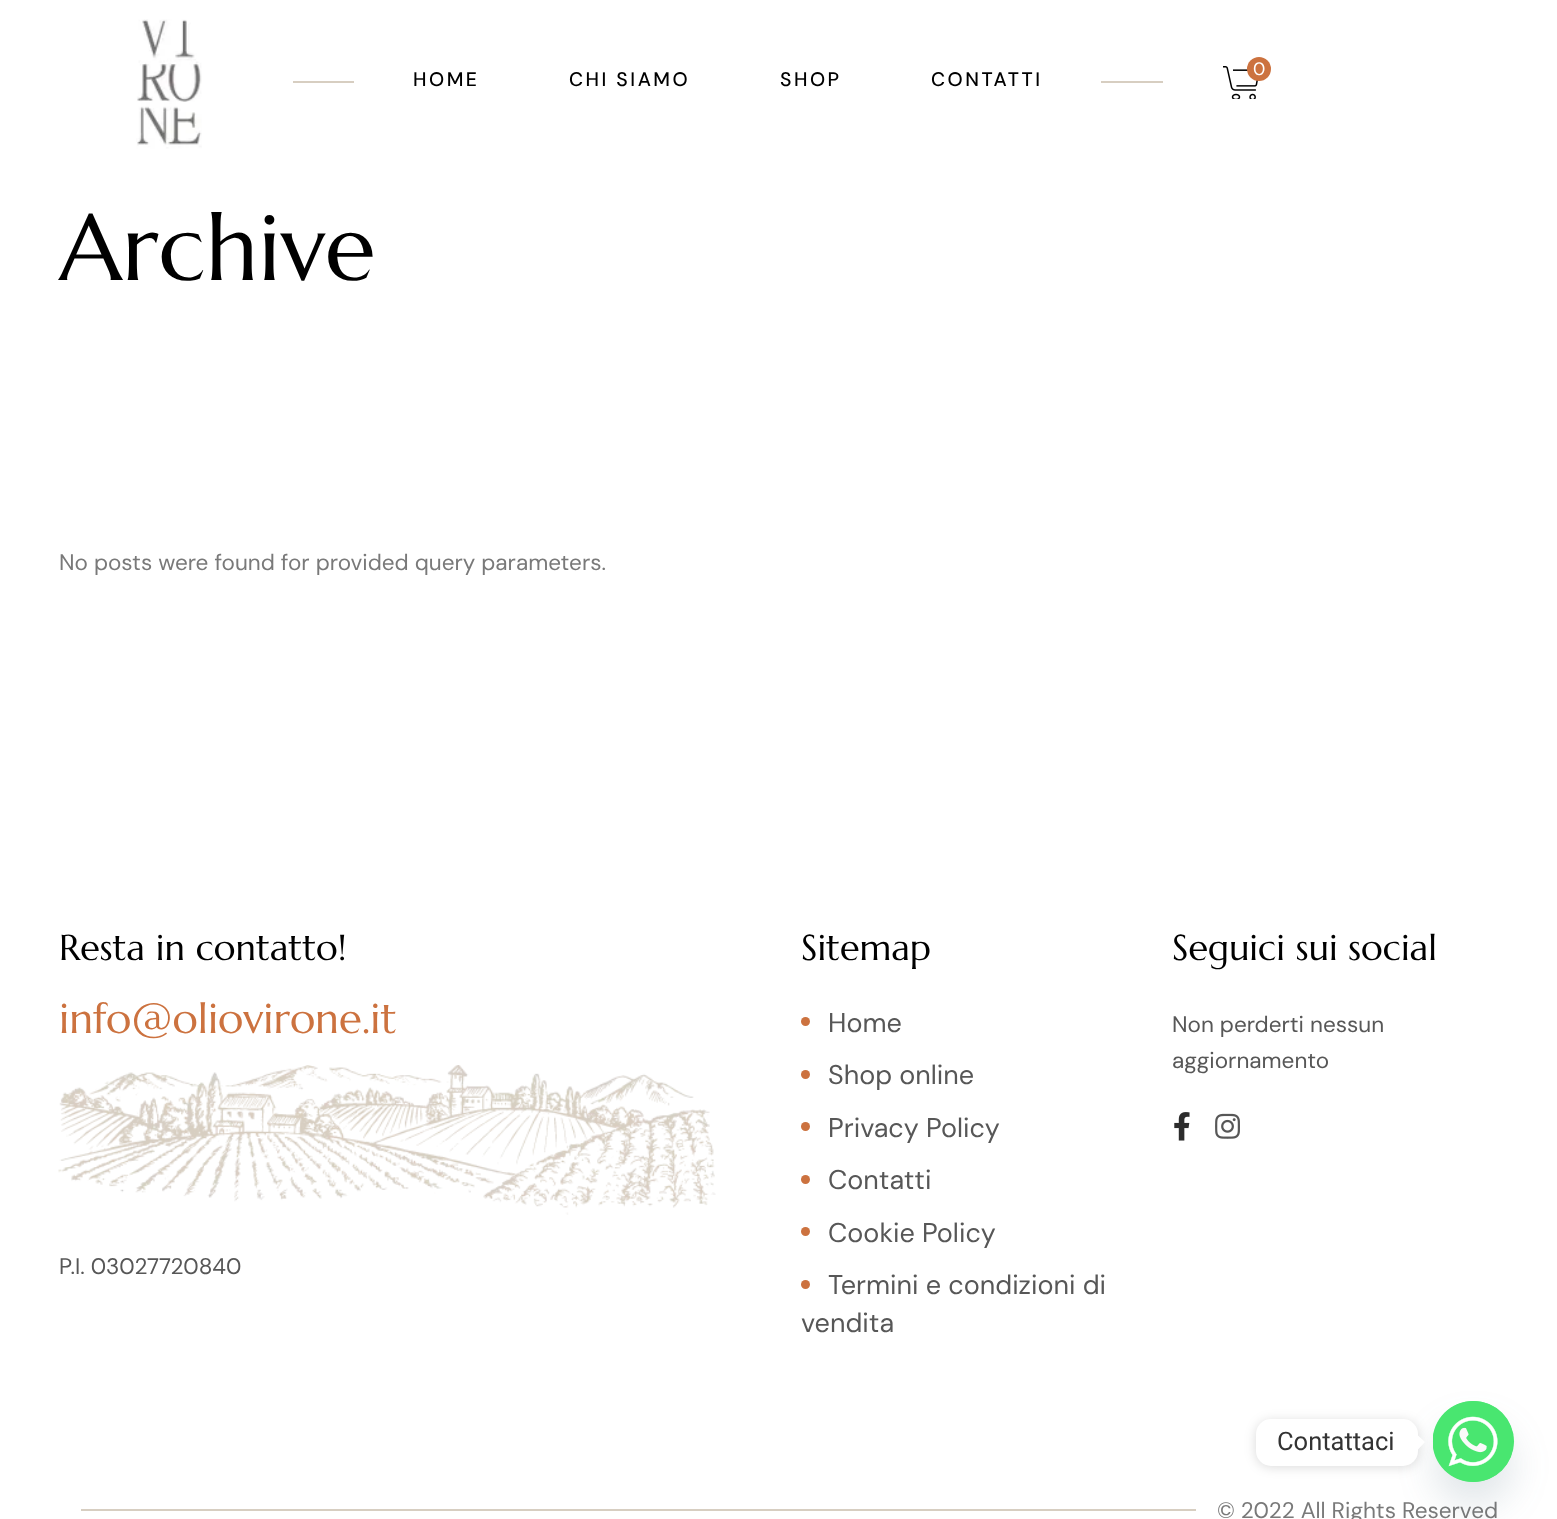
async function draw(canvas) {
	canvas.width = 1557;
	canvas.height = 1519;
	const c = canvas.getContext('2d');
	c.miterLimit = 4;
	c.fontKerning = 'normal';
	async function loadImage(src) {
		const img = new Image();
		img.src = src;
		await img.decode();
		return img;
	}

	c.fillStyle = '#fff';
	c.fillRect(0, 0, 1557, 1519);
	c.drawImage(await loadImage('img1.png'), 136, 19, 66, 130);
	c.drawImage(await loadImage('img2.png'), 1223, 66, 35, 33);
	c.fillStyle = '#cc723f';
	c.beginPath();
	c.arc(1259, 69, 12, 0, 2 * Math.PI);
	c.fill();
	c.font = '18px DM Sans';
	c.fillStyle = '#fff';
	c.fillText('0', 1253, 75);
	c.fillStyle = '#d7cec1';
	c.fillRect(293, 81, 61, 2);
	c.letterSpacing = '2.5px';
	c.font = '500 19.5px DM Sans';
	c.fillStyle = '#000';
	for (const [text, x, y] of [
		['HOME', 413, 86],
		['CHI SIAMO', 569, 86],
		['SHOP', 780, 86],
		['CONTATTI', 931, 86],
	]) {
		c.fillText(text, x, y);
	}
	c.fillStyle = '#d7cec1';
	c.fillRect(1101, 81, 62, 2);
	c.letterSpacing = '0px';
	c.font = '93px Marcellus';
	c.fillStyle = '#000';
	c.fillText('Archive', 59, 280);
	c.font = '22.5px DM Sans';
	c.fillStyle = '#797979';
	c.fillText('No posts were found for provided query parameters.', 59, 570);
	c.font = '36px Marcellus';
	c.fillStyle = '#000';
	c.fillText('Resta in contatto!', 59, 960);
	c.font = '42px Marcellus';
	c.fillStyle = '#cc723f';
	c.fillText('info@oliovirone.it', 59, 1033);
	c.drawImage(await loadImage('img3.png'), 58, 1065, 658, 150);
	c.font = '22.5px DM Sans';
	c.fillStyle = '#575757';
	c.fillText('P.I. 03027720840', 59, 1274);
	c.font = '36px Marcellus';
	c.fillStyle = '#000';
	c.fillText('Sitemap', 801, 960);
	c.fillStyle = '#cc723f';
	c.beginPath();
	c.arc(805.5, 1021.5, 4.5, 0, 2 * Math.PI);
	c.fill();
	c.font = '27px DM Sans';
	c.fillStyle = '#575757';
	c.fillText('Home', 828, 1032);
	c.fillStyle = '#cc723f';
	c.beginPath();
	c.arc(805.5, 1074.5, 4.5, 0, 2 * Math.PI);
	c.fill();
	c.fillStyle = '#575757';
	c.fillText('Shop online', 828, 1084);
	c.fillStyle = '#cc723f';
	c.beginPath();
	c.arc(805.5, 1126.5, 4.5, 0, 2 * Math.PI);
	c.fill();
	c.fillStyle = '#575757';
	c.fillText('Privacy Policy', 828, 1137);
	c.fillStyle = '#cc723f';
	c.beginPath();
	c.arc(805.5, 1179.5, 4.5, 0, 2 * Math.PI);
	c.fill();
	c.fillStyle = '#575757';
	c.fillText('Contatti', 828, 1189);
	c.fillStyle = '#cc723f';
	c.beginPath();
	c.arc(805.5, 1231.5, 4.5, 0, 2 * Math.PI);
	c.fill();
	c.fillStyle = '#575757';
	c.fillText('Cookie Policy', 828, 1242);
	c.fillStyle = '#cc723f';
	c.beginPath();
	c.arc(805.5, 1284.5, 4.5, 0, 2 * Math.PI);
	c.fill();
	c.fillStyle = '#575757';
	c.fillText('Termini e condizioni di', 828, 1294);
	c.fillText('vendita', 801, 1332);
	c.font = '36px Marcellus';
	c.fillStyle = '#000';
	c.fillText('Seguici sui social', 1172, 960);
	c.font = '22.5px DM Sans';
	c.fillStyle = '#575757';
	c.fillText('Non perderti nessun', 1172, 1032);
	c.fillText('aggiornamento', 1172, 1068);
	c.drawImage(await loadImage('img4.png'), 1174, 1112, 16, 29);
	c.drawImage(await loadImage('img5.png'), 1215, 1113, 25, 26);
	c.fillStyle = '#d7cec1';
	c.fillRect(81, 1509, 1115, 2);
	c.fillStyle = '#797979';
	c.fillText('© 2022 All Rights Reserved', 1217, 1518);
	c.fillStyle = '#49687e29';
	c.filter = 'blur(18px)';
	c.beginPath();
	c.roundRect(1433, 1425, 81, 81, 40.5);
	c.fill();
	c.filter = 'none';
	c.fillStyle = '#49e670';
	c.beginPath();
	c.arc(1473.5, 1441.5, 40.5, 0, 2 * Math.PI);
	c.fill();
	c.drawImage(await loadImage('img6.png'), 1433, 1401, 81, 81);
	c.fillStyle = '#00000026';
	c.filter = 'blur(6px)';
	c.beginPath();
	c.roundRect(1256, 1421, 162, 46, 15);
	c.fill();
	c.filter = 'none';
	c.fillStyle = '#fff';
	c.beginPath();
	c.roundRect(1256, 1419, 162, 47, 15);
	c.fill();
	c.font = '25.5px Roboto';
	c.fillStyle = '#333';
	c.fillText('Contattaci', 1277, 1450);
	c.fillStyle = '#fff';
	c.beginPath();
	c.moveTo(1417.5, 1450);
	c.lineTo(1417.5, 1435);
	c.lineTo(1425, 1442);
	c.closePath();
	c.fill();
}

draw(document.querySelector('canvas'));
